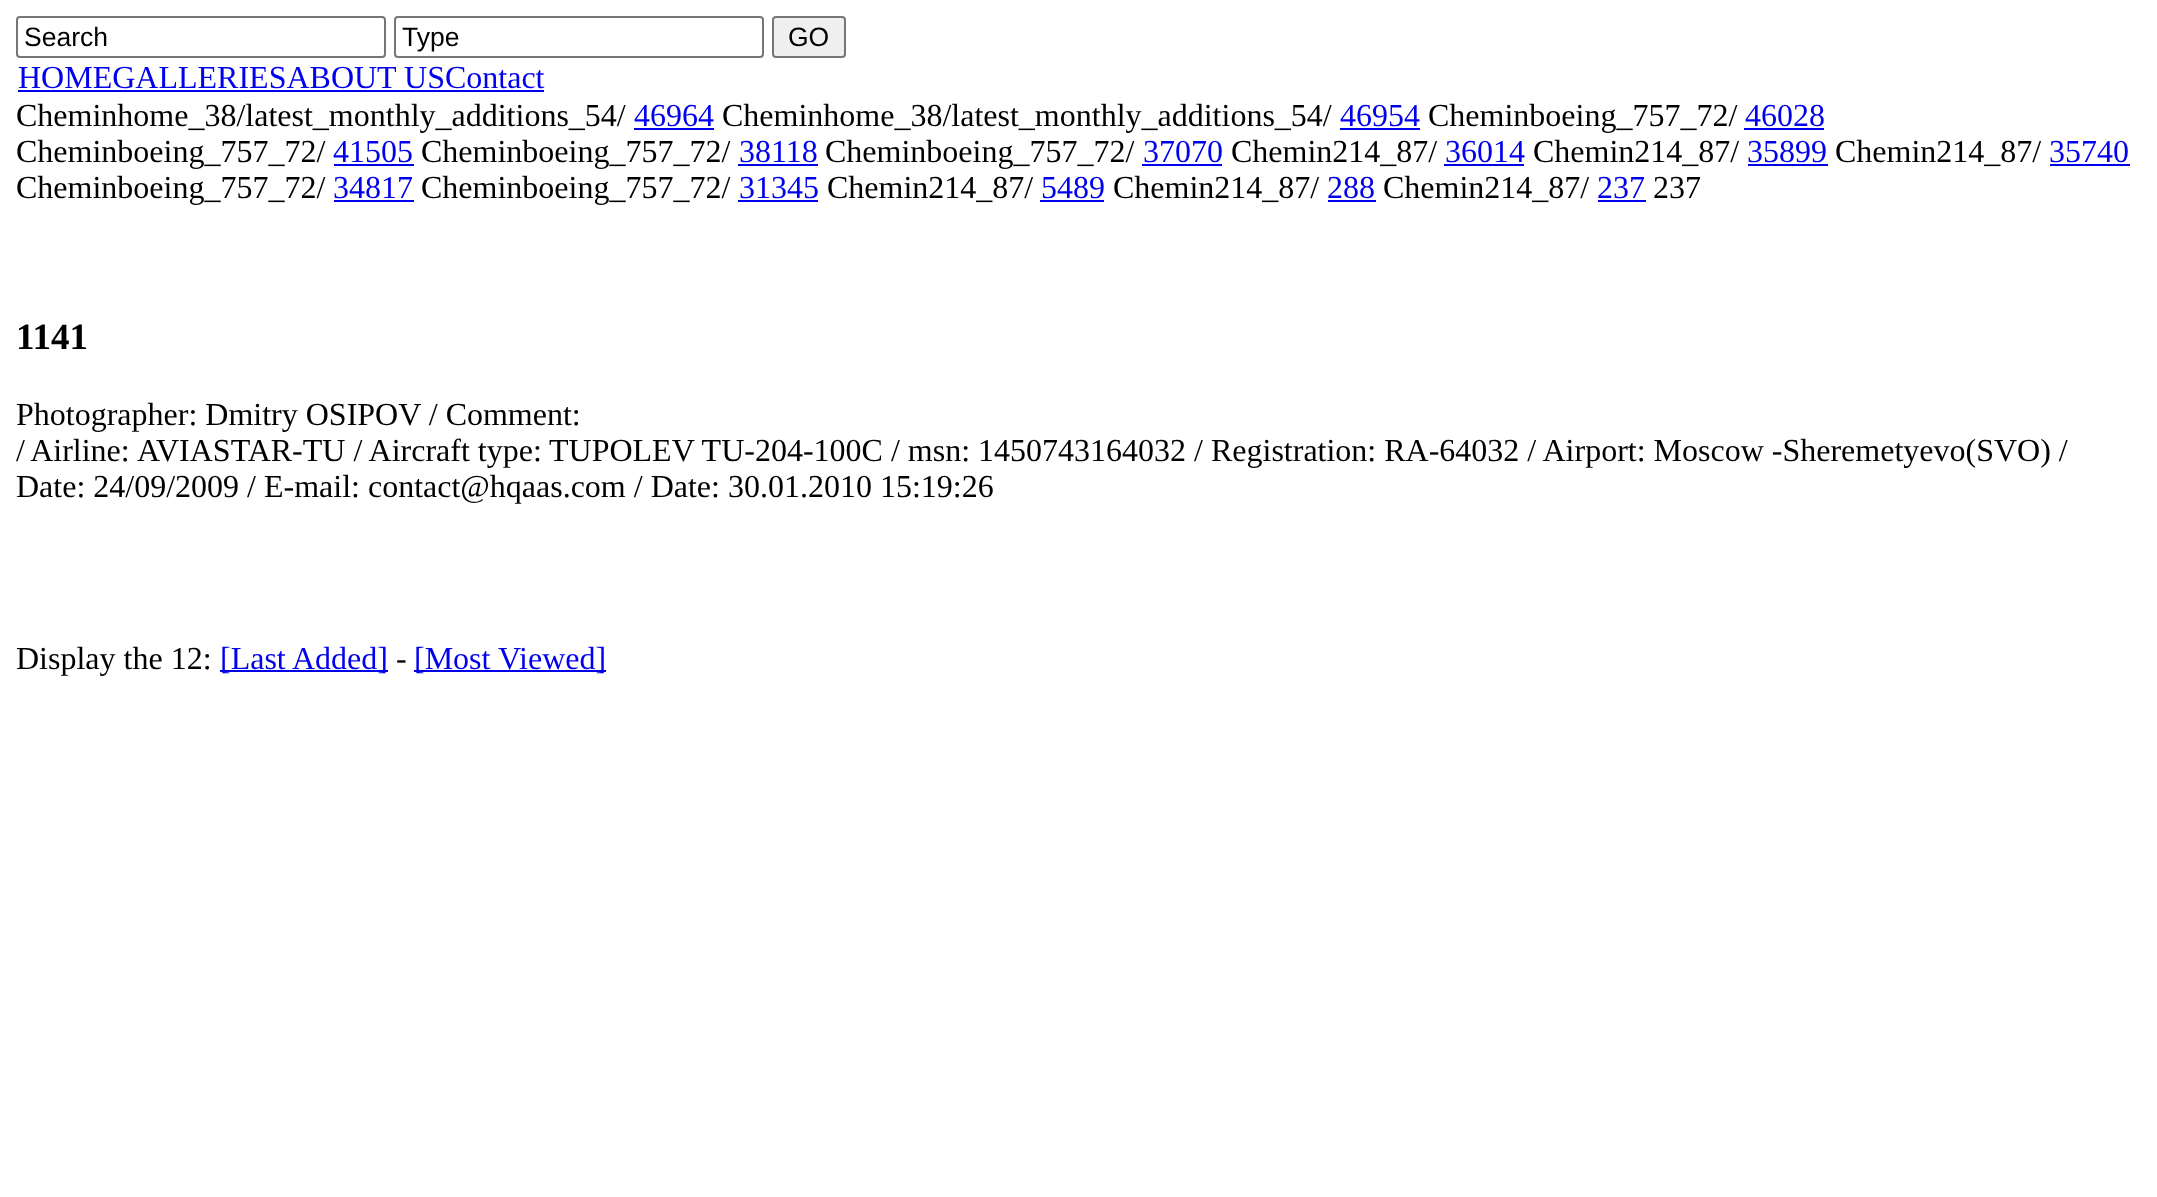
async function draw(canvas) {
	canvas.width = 2157;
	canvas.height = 1197;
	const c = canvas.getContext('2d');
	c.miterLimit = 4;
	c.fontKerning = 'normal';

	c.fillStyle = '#fff';
	c.fillRect(0, 0, 2157, 1197);
	c.beginPath();
	c.roundRect(17, 17, 368, 40, 3);
	c.strokeStyle = '#767676';
	c.lineWidth = 2;
	c.stroke();
	c.font = '26.5px Liberation Sans';
	c.fillStyle = '#000';
	c.fillText('Search', 24, 46);
	c.beginPath();
	c.roundRect(395, 17, 368, 40, 3);
	c.stroke();
	c.fillText('Type', 402, 46);
	c.fillStyle = '#efefef';
	c.beginPath();
	c.roundRect(773, 17, 72, 40, 3);
	c.fill();
	c.stroke();
	c.fillStyle = '#000';
	c.fillText('GO', 788, 46);
	c.font = '32px Liberation Serif';
	c.fillStyle = '#00e';
	c.fillText('HOMEGALLERIESABOUT USContact', 18, 88);
	c.fillRect(18, 90, 526, 2);
	c.fillStyle = '#000';
	c.fillText('Cheminhome_38/latest_monthly_additions_54/', 16, 126);
	c.fillStyle = '#00e';
	c.fillText('46964', 634, 126);
	c.fillRect(634, 128, 80, 2);
	c.fillStyle = '#000';
	c.fillText('Cheminhome_38/latest_monthly_additions_54/', 722, 126);
	c.fillStyle = '#00e';
	c.fillText('46954', 1340, 126);
	c.fillRect(1340, 128, 80, 2);
	c.fillStyle = '#000';
	c.fillText('Cheminboeing_757_72/', 1428, 126);
	c.fillStyle = '#00e';
	c.fillText('46028', 1745, 126);
	c.fillRect(1744, 128, 80, 2);
	c.fillStyle = '#000';
	c.fillText('Cheminboeing_757_72/', 16, 162);
	c.fillStyle = '#00e';
	c.fillText('41505', 333, 162);
	c.fillRect(334, 164, 80, 2);
	c.fillStyle = '#000';
	c.fillText('Cheminboeing_757_72/', 421, 162);
	c.fillStyle = '#00e';
	c.fillText('38118', 739, 162);
	c.fillRect(738, 164, 80, 2);
	c.fillStyle = '#000';
	c.fillText('Cheminboeing_757_72/', 825, 162);
	c.fillStyle = '#00e';
	c.fillText('37070', 1143, 162);
	c.fillRect(1142, 164, 80, 2);
	c.fillStyle = '#000';
	c.fillText('Chemin214_87/', 1231, 162);
	c.fillStyle = '#00e';
	c.fillText('36014', 1445, 162);
	c.fillRect(1444, 164, 80, 2);
	c.fillStyle = '#000';
	c.fillText('Chemin214_87/', 1533, 162);
	c.fillStyle = '#00e';
	c.fillText('35899', 1747, 162);
	c.fillRect(1748, 164, 80, 2);
	c.fillStyle = '#000';
	c.fillText('Chemin214_87/', 1835, 162);
	c.fillStyle = '#00e';
	c.fillText('35740', 2049, 162);
	c.fillRect(2050, 164, 80, 2);
	c.fillStyle = '#000';
	c.fillText('Cheminboeing_757_72/', 16, 198);
	c.fillStyle = '#00e';
	c.fillText('34817', 333, 198);
	c.fillRect(334, 200, 80, 2);
	c.fillStyle = '#000';
	c.fillText('Cheminboeing_757_72/', 421, 198);
	c.fillStyle = '#00e';
	c.fillText('31345', 739, 198);
	c.fillRect(738, 200, 80, 2);
	c.fillStyle = '#000';
	c.fillText('Chemin214_87/', 827, 198);
	c.fillStyle = '#00e';
	c.fillText('5489', 1041, 198);
	c.fillRect(1040, 200, 64, 2);
	c.fillStyle = '#000';
	c.fillText('Chemin214_87/', 1113, 198);
	c.fillStyle = '#00e';
	c.fillText('288', 1327, 198);
	c.fillRect(1328, 200, 48, 2);
	c.fillStyle = '#000';
	c.fillText('Chemin214_87/', 1383, 198);
	c.fillStyle = '#00e';
	c.fillText('237', 1597, 198);
	c.fillRect(1598, 200, 48, 2);
	c.fillStyle = '#000';
	c.fillText('237', 1653, 198);
	c.font = 'bold 37px Liberation Serif';
	c.fillText('1141', 16, 349);
	c.font = '32px Liberation Serif';
	c.fillText('Photographer: Dmitry OSIPOV / Comment:', 16, 425);
	c.wordSpacing = '-1px';
	c.fillText('/ Airline:', 16, 461);
	c.wordSpacing = '0px';
	for (const [text, x, y] of [
		['AVIASTAR-TU / Aircraft type:', 137, 461],
		['TUPOLEV TU-204-100C / msn: 1450743164032 / Registration: RA-64032 / Airport: Moscow -Sheremetyevo(SVO) /', 549, 461],
		['Date: 24/09/2009 / E-mail: contact@hqaas.com / Date: 30.01.2010 15:19:26', 16, 497],
		['Display the 12:', 16, 669],
	]) {
		c.fillText(text, x, y);
	}
	c.fillStyle = '#00e';
	c.fillRect(220, 670, 168, 2);
	c.fillText('[Last Added]', 220, 669);
	c.fillStyle = '#000';
	c.fillText('-', 396, 669);
	c.fillStyle = '#00e';
	c.fillRect(414, 670, 192, 2);
	c.fillText('[Most Viewed]', 414, 669);
}

draw(document.querySelector('canvas'));
